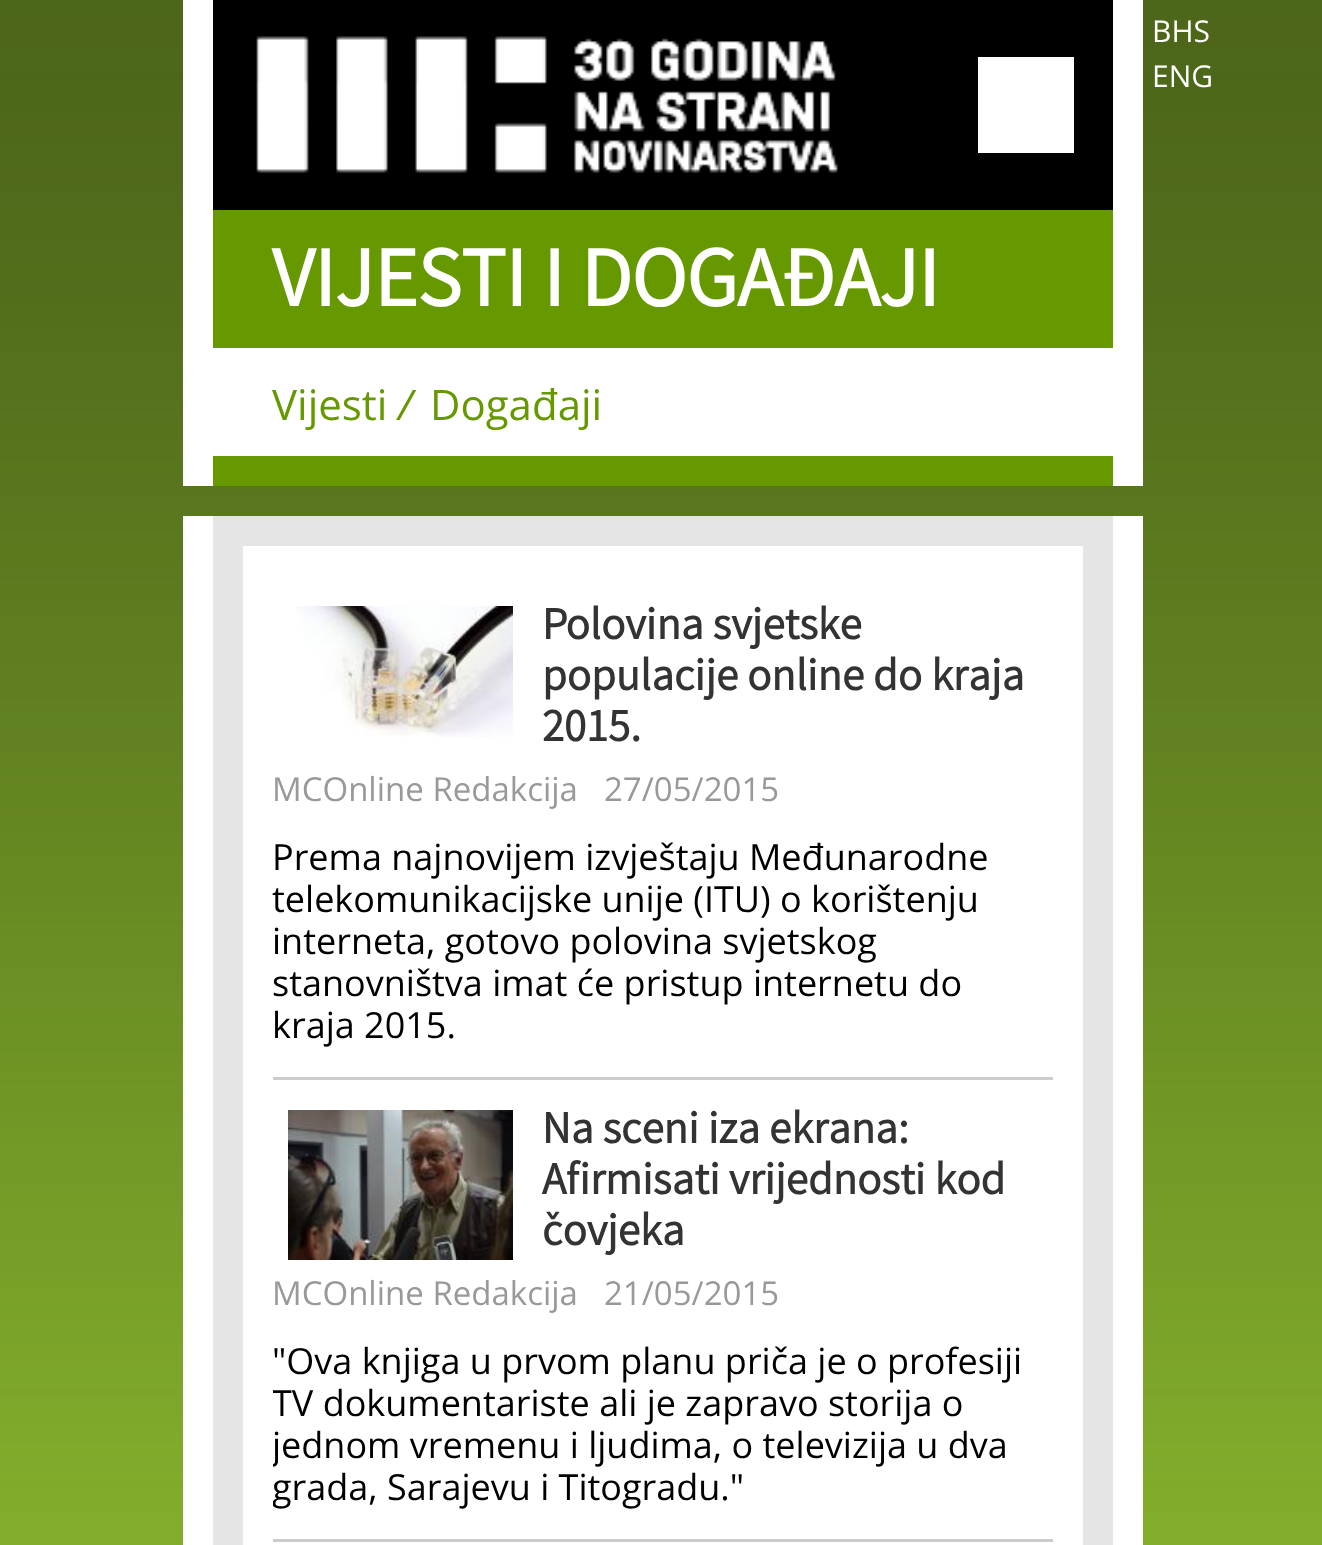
async function draw(canvas) {
	canvas.width = 1322;
	canvas.height = 1545;
	const c = canvas.getContext('2d');
	c.miterLimit = 4;
	c.fontKerning = 'normal';
	async function loadImage(src) {
		const img = new Image();
		img.src = src;
		await img.decode();
		return img;
	}

	c.fillStyle = '#fff';
	c.fillRect(0, 0, 1322, 1545);
	c.drawImage(await loadImage('img1.png'), 0, 0, 1322, 1545);
	c.fillRect(183, 0, 960, 486);
	c.fillStyle = '#000';
	c.fillRect(213, 0, 900, 210);
	c.drawImage(await loadImage('img2.png'), 256, 36, 582, 137);
	c.fillStyle = '#fff';
	c.fillRect(978, 57, 96, 96);
	c.font = '30px Open Sans';
	c.fillText('BHS', 1152, 42);
	c.fillText('ENG', 1152, 87);
	c.fillStyle = '#690';
	c.fillRect(213, 210, 900, 138);
	c.font = 'bold 84px Varta';
	c.fillStyle = '#fff';
	c.fillText('VIJESTI I DOGAĐAJI', 272, 306);
	c.fillStyle = '#690';
	c.fillRect(213, 456, 900, 30);
	c.font = '42px Open Sans';
	c.fillText('Vijesti', 272, 420);
	c.font = 'italic 42px Open Sans';
	c.fillText('/', 398, 420);
	c.font = '42px Open Sans';
	c.fillText('Događaji', 430, 420);
	c.fillStyle = '#fff';
	c.fillRect(183, 516, 960, 1029);
	c.strokeStyle = '#e5e5e5';
	c.lineWidth = 30;
	c.strokeRect(228, 531, 870, 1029);
	c.fillStyle = '#ccc';
	c.fillRect(273, 1077, 780, 3);
	c.drawImage(await loadImage('img3.png'), 296, 606, 217, 131);
	c.font = 'bold 45px Varta';
	c.fillStyle = '#333';
	for (const [text, x, y] of [
		['Polovina svjetske', 542, 639],
		['populacije online do kraja', 542, 690],
		['2015.', 542, 741],
	]) {
		c.fillText(text, x, y);
	}
	c.font = '33px Open Sans';
	c.fillStyle = '#999';
	c.fillText('MCOnline Redakcija', 272, 801);
	c.fillText('27/05/2015', 604, 801);
	c.font = '36px Open Sans';
	c.fillStyle = '#000';
	for (const [text, x, y] of [
		['Prema najnovijem izvještaju Međunarodne', 272, 870],
		['telekomunikacijske unije (ITU) o korištenju', 272, 912],
		['interneta, gotovo polovina svjetskog', 272, 954],
		['stanovništva imat će pristup internetu do', 272, 996],
		['kraja 2015.', 272, 1038],
	]) {
		c.fillText(text, x, y);
	}
	c.fillStyle = '#ccc';
	c.fillRect(273, 1539, 780, 3);
	c.drawImage(await loadImage('img4.png'), 288, 1110, 225, 150);
	c.font = 'bold 45px Varta';
	c.fillStyle = '#333';
	for (const [text, x, y] of [
		['Na sceni iza ekrana:', 542, 1143],
		['Afirmisati vrijednosti kod', 542, 1194],
		['čovjeka', 542, 1245],
	]) {
		c.fillText(text, x, y);
	}
	c.font = '33px Open Sans';
	c.fillStyle = '#999';
	c.fillText('MCOnline Redakcija', 272, 1305);
	c.fillText('21/05/2015', 604, 1305);
	c.font = '36px Open Sans';
	c.fillStyle = '#000';
	c.fillText('"Ova knjiga u prvom planu priča je o profesiji', 272, 1374);
	c.save();
	c.beginPath();
	c.rect(273, 576, 780, 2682);
	c.clip();
	for (const [text, x, y] of [
		['TV dokumentariste ali je zapravo storija o', 272, 1416],
		['jednom vremenu i ljudima, o televizija u dva', 272, 1458],
		['grada, Sarajevu i Titogradu."', 272, 1500],
	]) {
		c.fillText(text, x, y);
	}
	c.restore();
}

draw(document.querySelector('canvas'));
